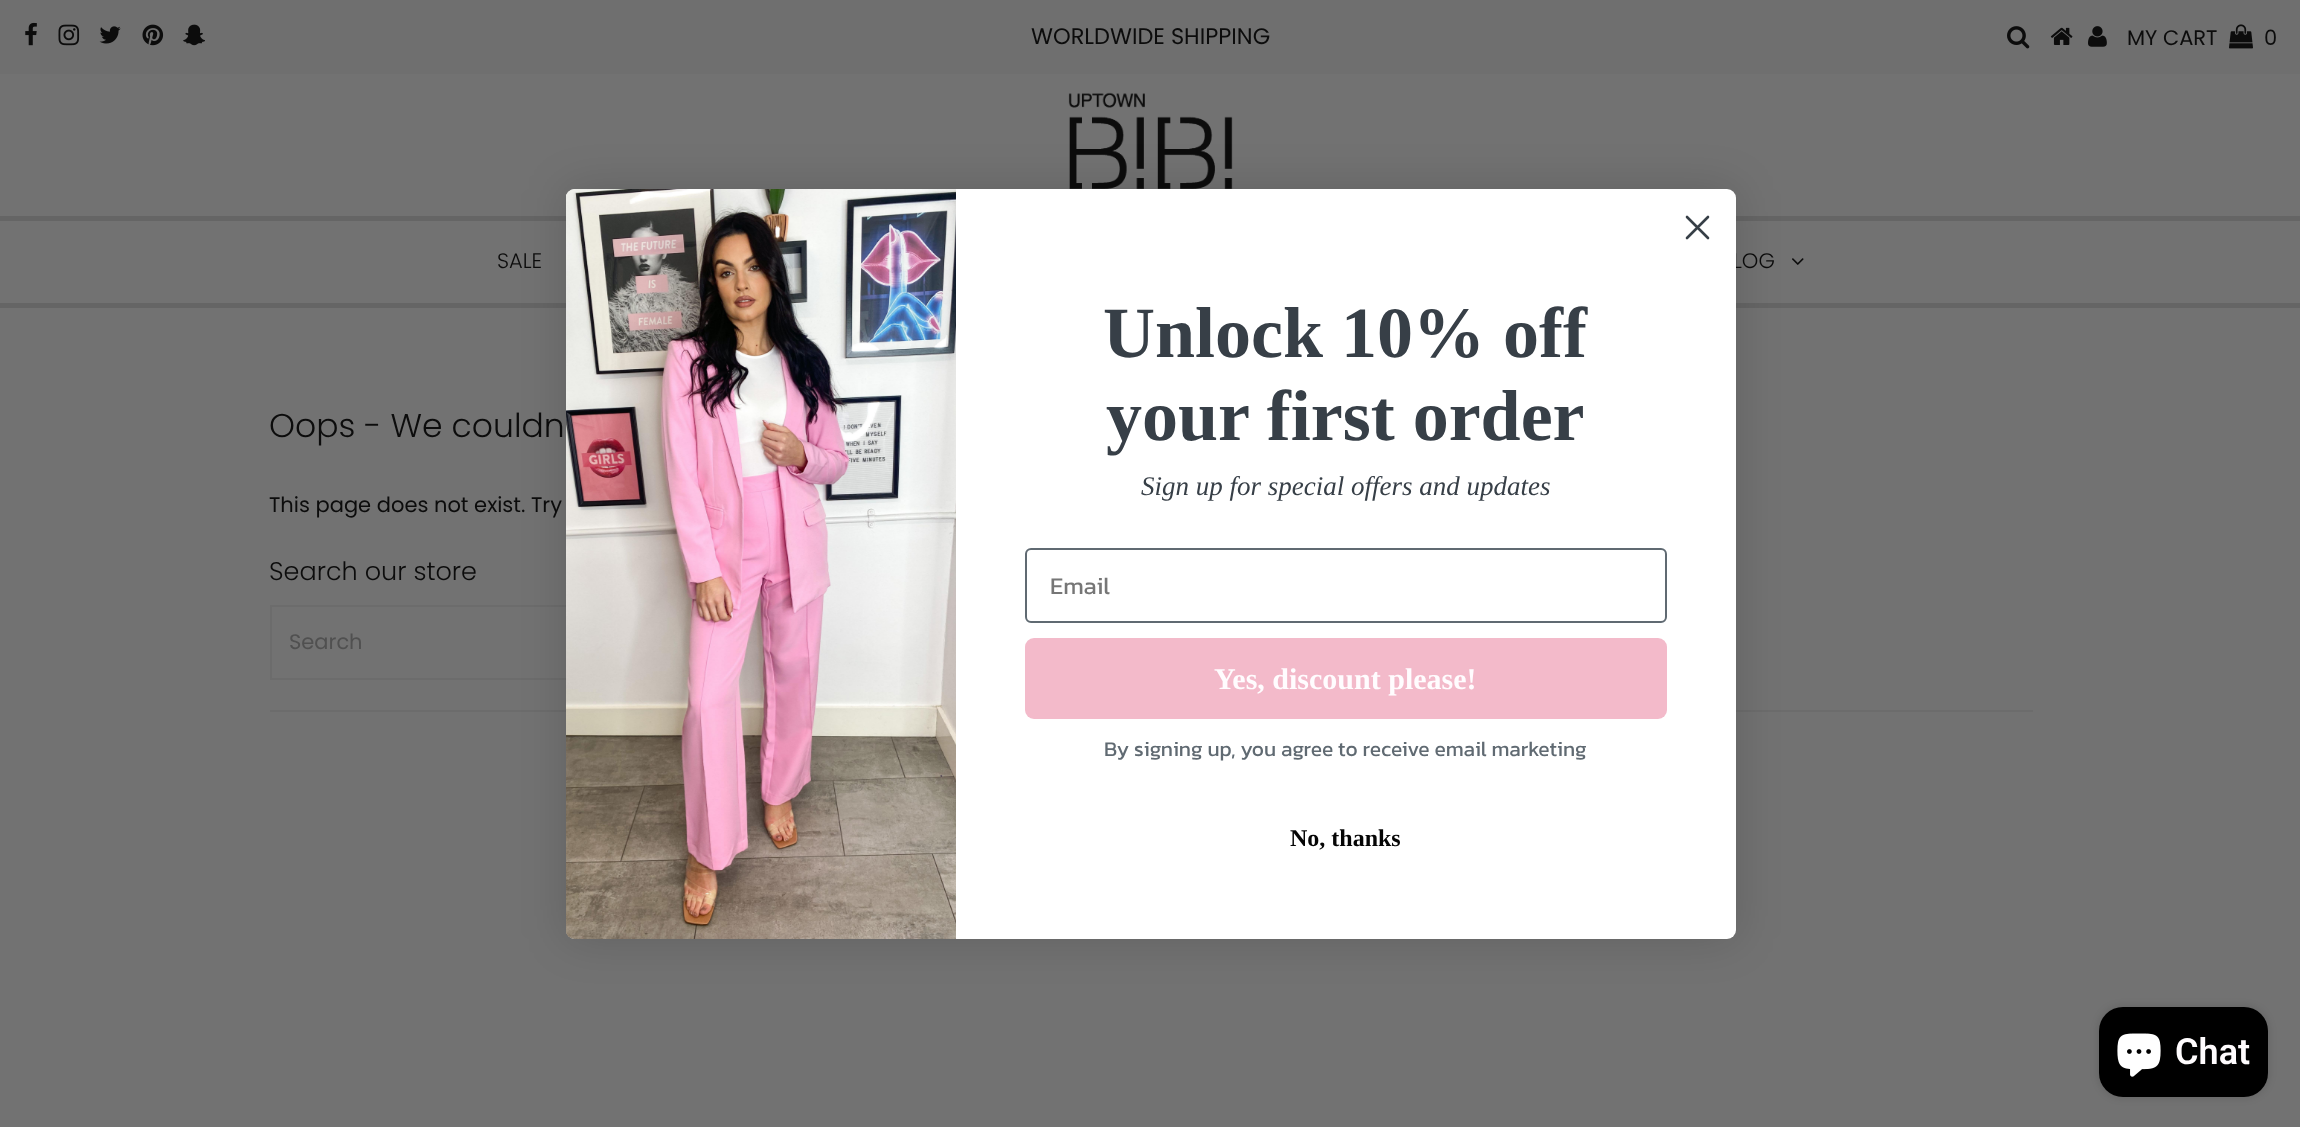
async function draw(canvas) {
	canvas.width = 2300;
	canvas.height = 1127;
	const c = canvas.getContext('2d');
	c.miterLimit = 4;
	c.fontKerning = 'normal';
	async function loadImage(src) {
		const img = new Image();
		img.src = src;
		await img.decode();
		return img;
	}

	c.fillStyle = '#727272';
	c.fillRect(0, 0, 2300, 1127);
	c.fillStyle = '#6f6f6f';
	c.fillRect(0, 0, 2300, 74);
	c.drawImage(await loadImage('img1.png'), 25, 22, 12, 24);
	c.drawImage(await loadImage('img2.png'), 58, 24, 22, 22);
	c.drawImage(await loadImage('img3.png'), 99, 26, 22, 18);
	c.drawImage(await loadImage('img4.png'), 142, 24, 22, 22);
	c.drawImage(await loadImage('img5.png'), 183, 24, 22, 22);
	c.font = '22.5px Poppins';
	c.fillStyle = '#0c0c0c';
	c.fillText('WORLDWIDE SHIPPING', 1031, 44);
	c.drawImage(await loadImage('img6.png'), 2007, 26, 23, 23);
	c.drawImage(await loadImage('img7.png'), 2050, 27, 23, 18);
	c.drawImage(await loadImage('img8.png'), 2088, 26, 19, 21);
	c.font = '21px Poppins';
	c.fillText('MY CART', 2127, 45);
	c.drawImage(await loadImage('img9.png'), 2229, 24, 24, 25);
	c.fillText('0', 2264, 45);
	c.drawImage(await loadImage('img10.png'), 1068, 92, 165, 97);
	c.fillStyle = '#656565';
	c.fillRect(0, 216, 2300, 5);
	c.fillRect(0, 303, 2300, 5);
	c.font = '300 21px Poppins';
	c.fillStyle = '#0c0c0c';
	c.fillText('SALE', 497, 268);
	c.fillText('LOG', 1733, 268);
	c.drawImage(await loadImage('img11.png'), 1792, 258, 12, 7);
	c.font = '300 33px Poppins';
	c.fillText('Oops - We couldn', 269, 437);
	c.font = '21px Poppins';
	c.fillText('This page does not exist. Try', 269, 512);
	c.fillStyle = '#6c6c6c';
	c.fillRect(270, 710, 1763, 2);
	c.font = '300 25.5px Poppins';
	c.fillStyle = '#0c0c0c';
	c.fillText('Search our store', 269, 580);
	c.strokeStyle = '#6c6c6c';
	c.lineWidth = 2;
	c.strokeRect(271, 606, 448, 73);
	c.font = '21px Poppins';
	c.fillStyle = '#505050';
	c.fillText('Search', 289, 649);
	c.fillStyle = '#00000026';
	c.filter = 'blur(22.5px)';
	c.beginPath();
	c.roundRect(566, 189, 1170, 750, 9);
	c.fill();
	c.filter = 'none';
	c.fillStyle = '#fff';
	c.beginPath();
	c.roundRect(566, 189, 1170, 750, 9);
	c.fill();
	c.beginPath();
	c.moveTo(1687, 217);
	c.lineTo(1708, 238);
	c.moveTo(1687, 238);
	c.lineTo(1708, 217);
	c.closePath();
	c.strokeStyle = '#373f47';
	c.lineWidth = 2.6;
	c.lineCap = 'round';
	c.lineJoin = 'round';
	c.stroke();
	c.drawImage(await loadImage('img12.png'), 566, 189, 390, 750);
	c.font = 'bold 72px Liberation Serif';
	c.fillStyle = '#373f47';
	c.fillText('Unlock 10% off', 1103, 357);
	c.fillText('your first order', 1106, 440);
	c.font = 'italic 27px Liberation Serif';
	c.fillText('Sign up for special offers and updates', 1141, 495);
	c.beginPath();
	c.roundRect(1026, 549, 640, 73, 5);
	c.strokeStyle = '#606a72';
	c.lineWidth = 2;
	c.lineJoin = 'miter';
	c.stroke();
	c.font = '24px Kanit';
	c.fillStyle = '#767676';
	c.fillText('Email', 1050, 594);
	c.fillStyle = '#f3baca';
	c.beginPath();
	c.roundRect(1025, 638, 642, 81, 9);
	c.fill();
	c.font = 'bold 30px Liberation Serif';
	c.fillStyle = '#fffcfe';
	c.fillText('Yes, discount please!', 1214, 689);
	c.font = '21px Kanit';
	c.fillStyle = '#606a72';
	c.fillText('By signing up, you agree to receive email marketing', 1104, 756);
	c.font = 'bold 24px Liberation Serif';
	c.fillStyle = '#050505';
	c.fillText('No, thanks', 1290, 846);
	c.fillStyle = '#00000026';
	c.filter = 'blur(4px)';
	c.beginPath();
	c.roundRect(2099, 1007, 169, 90, 24);
	c.fill();
	c.filter = 'none';
	c.fillStyle = '#000';
	c.beginPath();
	c.roundRect(2099, 1007, 169, 90, 24);
	c.fill();
	c.drawImage(await loadImage('img13.png'), 2117, 1033, 44, 44);
	c.font = '600 36px Roboto';
	c.fillStyle = '#fffcfe';
	c.fillText('Chat', 2175, 1064);
}

draw(document.querySelector('canvas'));
